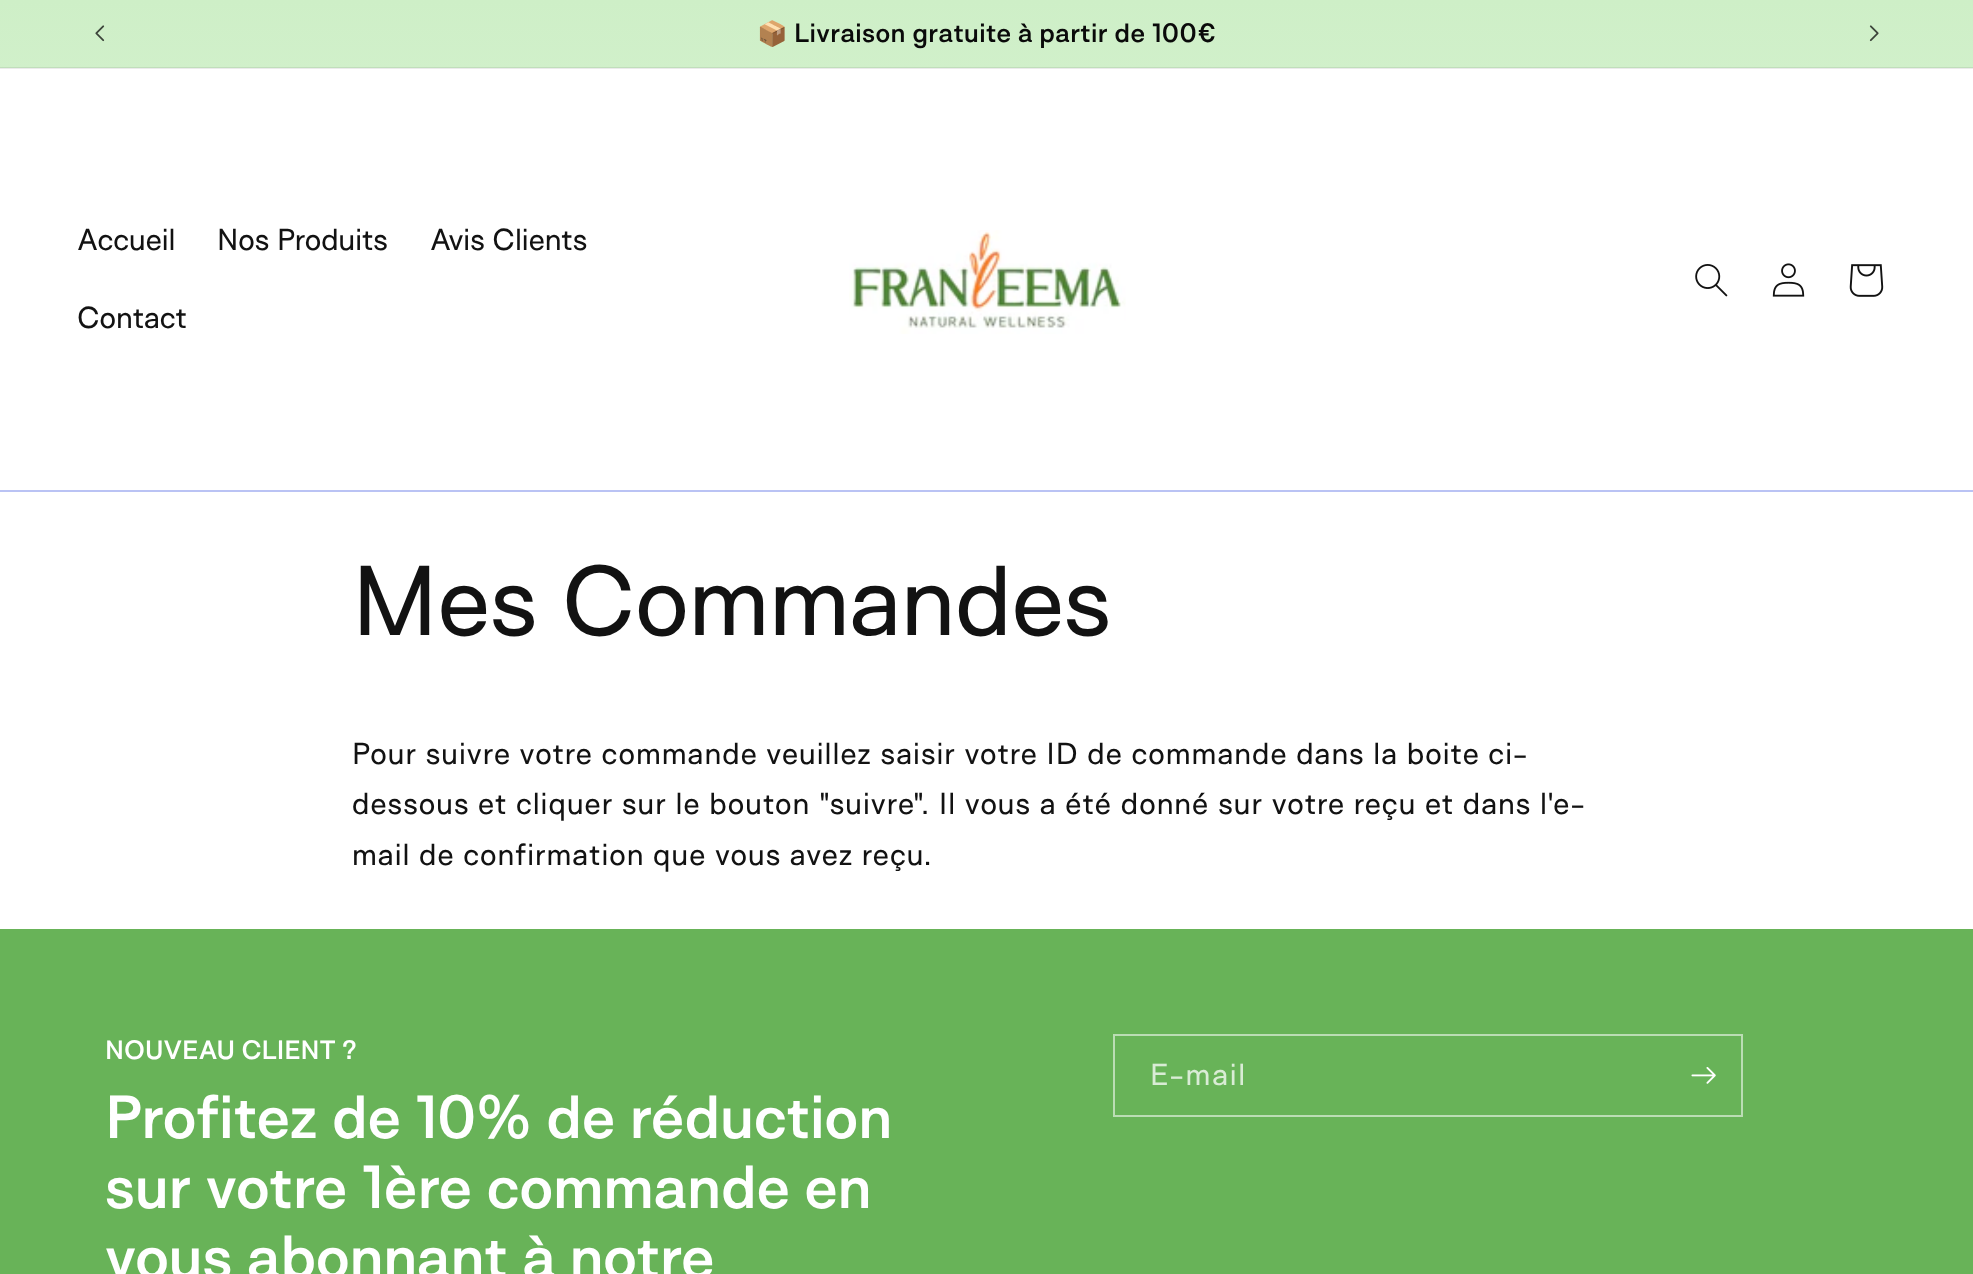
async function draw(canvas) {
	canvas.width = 1973;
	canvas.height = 1274;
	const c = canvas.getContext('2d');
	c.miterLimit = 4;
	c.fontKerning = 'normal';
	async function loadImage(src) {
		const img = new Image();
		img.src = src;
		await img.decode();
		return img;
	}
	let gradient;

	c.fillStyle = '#fff';
	c.fillRect(0, 0, 1973, 1274);
	c.fillStyle = '#ebebeb';
	c.fillRect(0, 68, 1973, 1);
	gradient = c.createLinearGradient(987, 0, 987, 1274);
	gradient.addColorStop(0, '#ceefc7');
	gradient.addColorStop(1, '#fff');
	c.fillStyle = gradient;
	c.fillRect(0, 0, 1973, 67);
	gradient = c.createLinearGradient(987, 0, 987, 1274);
	gradient.addColorStop(0, '#beddb8');
	gradient.addColorStop(1, '#ebebeb');
	c.fillStyle = gradient;
	c.fillRect(0, 67, 1973, 1);
	c.drawImage(await loadImage('img1.png'), 95, 25, 10, 17);
	c.letterSpacing = '0.35px';
	c.font = 'bold 24.5px Noto Color Emoji';
	c.fillStyle = '#0a0a0a';
	c.fillText('📦', 757, 42);
	c.font = '600 24.5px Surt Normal';
	c.fillText('Livraison gratuite à partir de 100€', 794, 42);
	c.drawImage(await loadImage('img2.png'), 1869, 25, 10, 17);
	c.fillStyle = '#bac3f4';
	c.fillRect(0, 490, 1973, 2);
	c.letterSpacing = '0px';
	c.font = '28px Surt Normal';
	c.fillStyle = '#121212';
	for (const [text, x, y] of [
		['Accueil', 77, 250],
		['Nos Produits', 217, 250],
		['Avis Clients', 430, 250],
		['Contact', 77, 328],
	]) {
		c.fillText(text, x, y);
	}
	c.drawImage(await loadImage('img3.png'), 849, 230, 277, 104);
	c.drawImage(await loadImage('img4.png'), 1695, 264, 33, 33);
	c.drawImage(await loadImage('img5.png'), 1772, 263, 33, 34);
	c.drawImage(await loadImage('img6.png'), 1849, 264, 35, 33);
	c.font = '91px Surt Normal';
	c.fillText('Mes Commandes', 352, 635);
	c.letterSpacing = '1.05px';
	c.font = '28px Surt Normal';
	for (const [text, x, y] of [
		['Pour suivre votre commande veuillez saisir votre ID de commande dans la boite ci-', 352, 764],
		['dessous et cliquer sur le bouton "suivre". Il vous a été donné sur votre reçu et dans l\'e-', 352, 814],
		['mail de confirmation que vous avez reçu.', 352, 865],
	]) {
		c.fillText(text, x, y);
	}
	c.fillStyle = '#68b358';
	c.fillRect(0, 929, 1973, 345);
	c.letterSpacing = '0px';
	c.font = '600 24.5px Surt Normal';
	c.fillStyle = '#fff';
	c.fillText('NOUVEAU CLIENT ?', 105, 1059);
	c.font = '600 56px Surt Normal';
	for (const [text, x, y] of [
		['Profitez de 10% de réduction', 105, 1138],
		['sur votre 1ère commande en', 105, 1208],
		['vous abonnant à notre', 105, 1278],
	]) {
		c.fillText(text, x, y);
	}
	c.strokeStyle = '#bbddb4';
	c.lineWidth = 2;
	c.strokeRect(1114, 1035, 628, 81);
	c.letterSpacing = '1.75px';
	c.font = '28px Surt Normal';
	c.fillStyle = '#d9ecd5';
	c.fillText('E-mail', 1150, 1085);
	c.drawImage(await loadImage('img7.png'), 1691, 1067, 25, 17);
}

draw(document.querySelector('canvas'));
